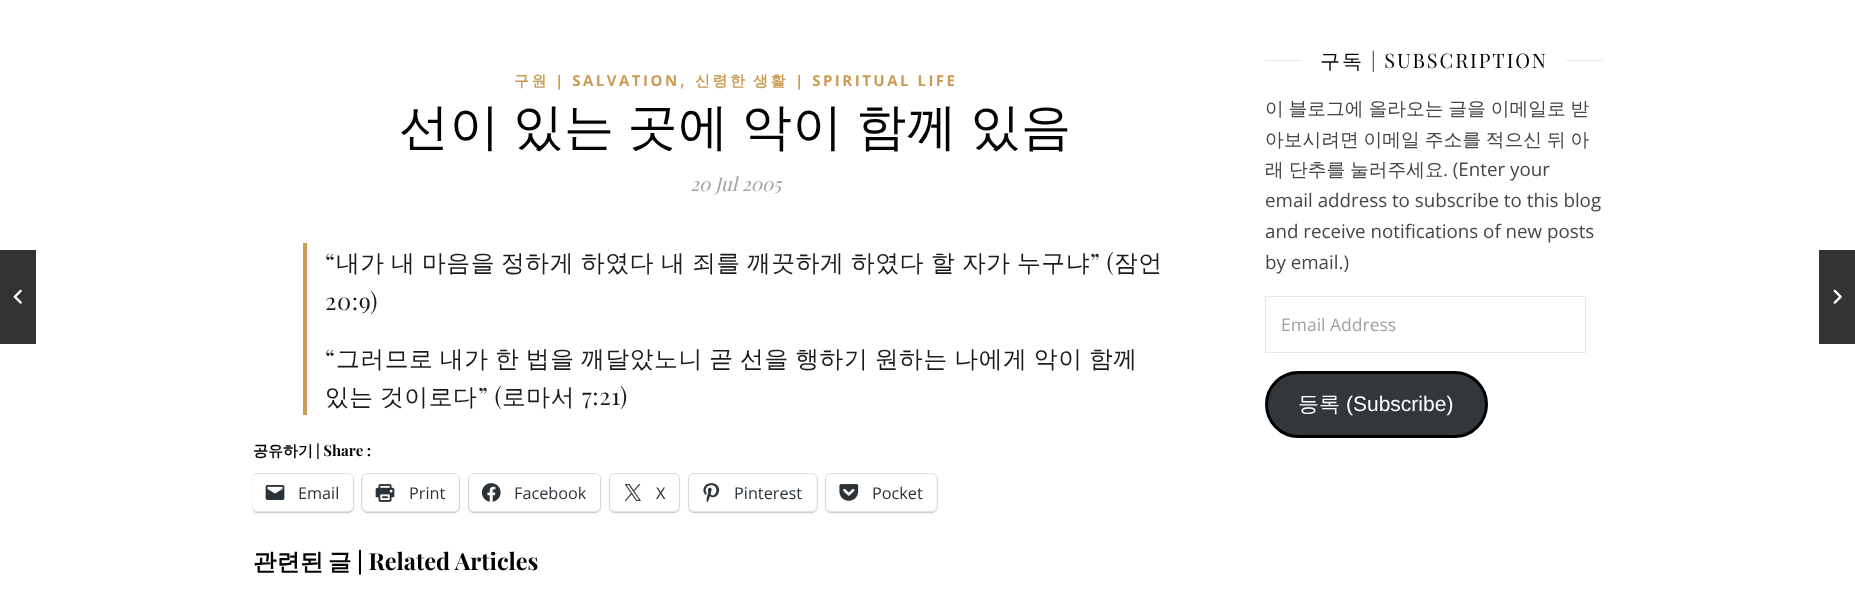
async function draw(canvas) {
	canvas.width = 1855;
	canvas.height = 593;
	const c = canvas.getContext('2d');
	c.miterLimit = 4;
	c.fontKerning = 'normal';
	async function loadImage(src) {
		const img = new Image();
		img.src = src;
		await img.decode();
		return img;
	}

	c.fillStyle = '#fff';
	c.fillRect(0, 0, 1855, 593);
	c.fillStyle = '#333';
	c.fillRect(0, 250, 36, 94);
	c.drawImage(await loadImage('img1.png'), 13, 289, 9, 15);
	c.letterSpacing = '2.5px';
	c.font = 'bold 15px WenQuanYi Zen Hei';
	c.fillStyle = '#ca9b52';
	c.fillText('구원', 514, 86);
	c.font = 'bold 15px Open Sans';
	c.fillText('| SALVATION', 555, 86);
	c.letterSpacing = '0px';
	c.font = '18.75px Open Sans';
	c.fillText(',', 680, 86);
	c.letterSpacing = '2.5px';
	c.font = 'bold 15px WenQuanYi Zen Hei';
	c.fillText('신령한', 695, 86);
	c.fillText('생활', 753, 86);
	c.font = 'bold 15px Open Sans';
	c.fillText('| SPIRITUAL LIFE', 795, 86);
	c.letterSpacing = '0.6px';
	c.wordSpacing = '-2.5px';
	c.font = '500 50px WenQuanYi Zen Hei';
	c.fillStyle = '#030303';
	c.fillText('선이 있는 곳에 악이 함께 있음', 399, 144);
	c.letterSpacing = '0px';
	c.wordSpacing = '0px';
	c.font = 'italic 18.75px Playfair Display';
	c.fillStyle = '#a1a1a1';
	c.fillText('20 Jul 2005', 690, 191);
	c.fillStyle = '#ca9b52';
	c.fillRect(303, 243, 4, 172);
	c.letterSpacing = '0.6px';
	c.font = '23.75px Playfair Display';
	c.fillStyle = '#1c1c1c';
	c.fillText('“', 325, 271);
	c.font = '500 23.75px WenQuanYi Zen Hei';
	for (const [text, x, y] of [
		['내가', 336, 271],
		['내', 391, 271],
		['마음을', 422, 271],
		['정하게', 501, 271],
		['하였다', 581, 271],
		['내', 661, 271],
		['죄를', 692, 271],
		['깨끗하게', 747, 271],
		['하였다', 851, 271],
		['할', 931, 271],
		['자가', 962, 271],
		['누구냐', 1017, 271],
	]) {
		c.fillText(text, x, y);
	}
	c.font = '23.75px Playfair Display';
	c.fillText('” (', 1090, 271);
	c.font = '500 23.75px WenQuanYi Zen Hei';
	c.fillText('잠언', 1114, 271);
	c.font = '23.75px Playfair Display';
	c.fillText('20:9)', 325, 310);
	c.fillText('“', 325, 367);
	c.wordSpacing = '-1.25px';
	c.font = '500 23.75px WenQuanYi Zen Hei';
	c.fillText('그러므로 내가 한 법을 깨달았노니 곧 선을 행하기 원하는 나에게 악이 함께', 336, 367);
	c.wordSpacing = '0px';
	c.fillText('있는', 325, 405);
	c.fillText('것이로다', 380, 405);
	c.font = '23.75px Playfair Display';
	c.fillText('” (', 478, 405);
	c.font = '500 23.75px WenQuanYi Zen Hei';
	c.fillText('로마서', 502, 405);
	c.font = '23.75px Playfair Display';
	c.fillText('7:21)', 582, 405);
	c.letterSpacing = '0px';
	c.font = 'bold 15px WenQuanYi Zen Hei';
	c.fillStyle = '#030303';
	c.fillText('공유하기', 253, 456);
	c.font = 'bold 15px Playfair Display';
	c.fillText('| Share :', 316, 456);
	c.save();
	c.beginPath();
	c.rect(253, 224, 966, 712);
	c.clip();
	c.beginPath();
	c.roundRect(251.5, 473.5, 102, 39, 5.5);
	c.strokeStyle = '#e0e0e0';
	c.stroke();
	c.restore();
	c.fillStyle = '#0000001f';
	c.filter = 'blur(1px)';
	c.beginPath();
	c.roundRect(253, 475, 100, 38, 5);
	c.fill();
	c.filter = 'none';
	c.fillStyle = '#fff';
	c.beginPath();
	c.roundRect(253, 474, 100, 37, 5);
	c.fill();
	c.drawImage(await loadImage('img2.png'), 265, 485, 20, 15);
	c.font = '16.25px Open Sans';
	c.fillStyle = '#2c3338';
	c.fillText('Email', 298, 499);
	c.beginPath();
	c.roundRect(361.5, 473.5, 98, 39, 5.5);
	c.strokeStyle = '#e0e0e0';
	c.stroke();
	c.fillStyle = '#0000001f';
	c.filter = 'blur(1px)';
	c.beginPath();
	c.roundRect(363, 475, 96, 38, 5);
	c.fill();
	c.filter = 'none';
	c.fillStyle = '#fff';
	c.beginPath();
	c.roundRect(363, 474, 96, 37, 5);
	c.fill();
	c.drawImage(await loadImage('img3.png'), 375, 484, 20, 18);
	c.fillStyle = '#2c3338';
	c.fillText('Print', 409, 499);
	c.beginPath();
	c.roundRect(468.5, 473.5, 132, 39, 5.5);
	c.stroke();
	c.fillStyle = '#0000001f';
	c.filter = 'blur(1px)';
	c.beginPath();
	c.roundRect(469, 475, 131, 38, 5);
	c.fill();
	c.filter = 'none';
	c.fillStyle = '#fff';
	c.beginPath();
	c.roundRect(469, 474, 131, 37, 5);
	c.fill();
	c.drawImage(await loadImage('img4.png'), 481, 483, 20, 19);
	c.fillStyle = '#2c3338';
	c.fillText('Facebook', 514, 499);
	c.beginPath();
	c.roundRect(609.5, 473.5, 70, 39, 5.5);
	c.stroke();
	c.fillStyle = '#0000001f';
	c.filter = 'blur(1px)';
	c.beginPath();
	c.roundRect(610, 475, 69, 38, 5);
	c.fill();
	c.filter = 'none';
	c.fillStyle = '#fff';
	c.beginPath();
	c.roundRect(610, 474, 69, 37, 5);
	c.fill();
	c.drawImage(await loadImage('img5.png'), 624, 484, 17, 17);
	c.fillStyle = '#2c3338';
	c.fillText('X', 656, 499);
	c.beginPath();
	c.roundRect(688.5, 473.5, 129, 39, 5.5);
	c.stroke();
	c.fillStyle = '#0000001f';
	c.filter = 'blur(1px)';
	c.beginPath();
	c.roundRect(689, 475, 127, 38, 5);
	c.fill();
	c.filter = 'none';
	c.fillStyle = '#fff';
	c.beginPath();
	c.roundRect(689, 474, 127, 37, 5);
	c.fill();
	c.drawImage(await loadImage('img6.png'), 703, 483, 17, 20);
	c.fillStyle = '#2c3338';
	c.fillText('Pinterest', 734, 499);
	c.beginPath();
	c.roundRect(825.5, 473.5, 112, 39, 5.5);
	c.stroke();
	c.fillStyle = '#0000001f';
	c.filter = 'blur(1px)';
	c.beginPath();
	c.roundRect(826, 475, 110, 38, 5);
	c.fill();
	c.filter = 'none';
	c.fillStyle = '#fff';
	c.beginPath();
	c.roundRect(826, 474, 110, 37, 5);
	c.fill();
	c.drawImage(await loadImage('img7.png'), 839, 484, 20, 17);
	c.fillStyle = '#2c3338';
	c.fillText('Pocket', 872, 499);
	c.font = 'bold 23.5px WenQuanYi Zen Hei';
	c.fillStyle = '#030303';
	c.fillText('관련된', 253, 570);
	c.fillText('글', 328, 570);
	c.font = 'bold 23.5px Playfair Display';
	c.fillText('| Related Articles', 357, 570);
	c.fillStyle = '#333';
	c.fillRect(1819, 250, 36, 94);
	c.drawImage(await loadImage('img8.png'), 1833, 289, 9, 15);
	c.fillStyle = '#e8e8e8';
	c.fillRect(1265, 60, 36, 1);
	c.letterSpacing = '1.9px';
	c.font = '500 20px WenQuanYi Zen Hei';
	c.fillStyle = '#030303';
	c.fillText('구독', 1320, 68);
	c.font = '20px Playfair Display';
	c.fillText('| SUBSCRIPTION', 1371, 68);
	c.fillStyle = '#e8e8e8';
	c.fillRect(1566, 60, 37, 1);
	c.letterSpacing = '0px';
	c.wordSpacing = '-0.75px';
	c.font = '500 18.75px WenQuanYi Zen Hei';
	c.fillStyle = '#464646';
	c.fillText('이 블로그에 올라오는 글을 이메일로 받', 1265, 115);
	c.fillText('아보시려면 이메일 주소를 적으신 뒤 아', 1265, 146);
	c.wordSpacing = '0px';
	for (const [text, x, y] of [
		['래', 1265, 176],
		['단추를', 1289, 176],
		['눌러주세요', 1350, 176],
	]) {
		c.fillText(text, x, y);
	}
	c.font = '18.75px Open Sans';
	for (const [text, x, y] of [
		['. (Enter your', 1443, 176],
		['email address to subscribe to this blog', 1265, 207],
		['and receive notifications of new posts', 1265, 238],
		['by email.)', 1265, 269],
	]) {
		c.fillText(text, x, y);
	}
	c.strokeStyle = '#e8e8e8';
	c.strokeRect(1265.5, 296.5, 320, 56);
	c.font = '17.5px Open Sans';
	c.fillStyle = '#a1a1a1';
	c.fillText('Email Address', 1281, 331);
	c.fillStyle = '#32373c';
	c.beginPath();
	c.roundRect(1266.5, 372.5, 220, 64, 32);
	c.fill();
	c.strokeStyle = '#000';
	c.lineWidth = 3;
	c.stroke();
	c.font = '500 21px WenQuanYi Zen Hei';
	c.fillStyle = '#fff';
	c.fillText('등록', 1298, 411);
	c.font = '21px Liberation Sans';
	c.fillText('(Subscribe)', 1346, 411);
}

draw(document.querySelector('canvas'));
